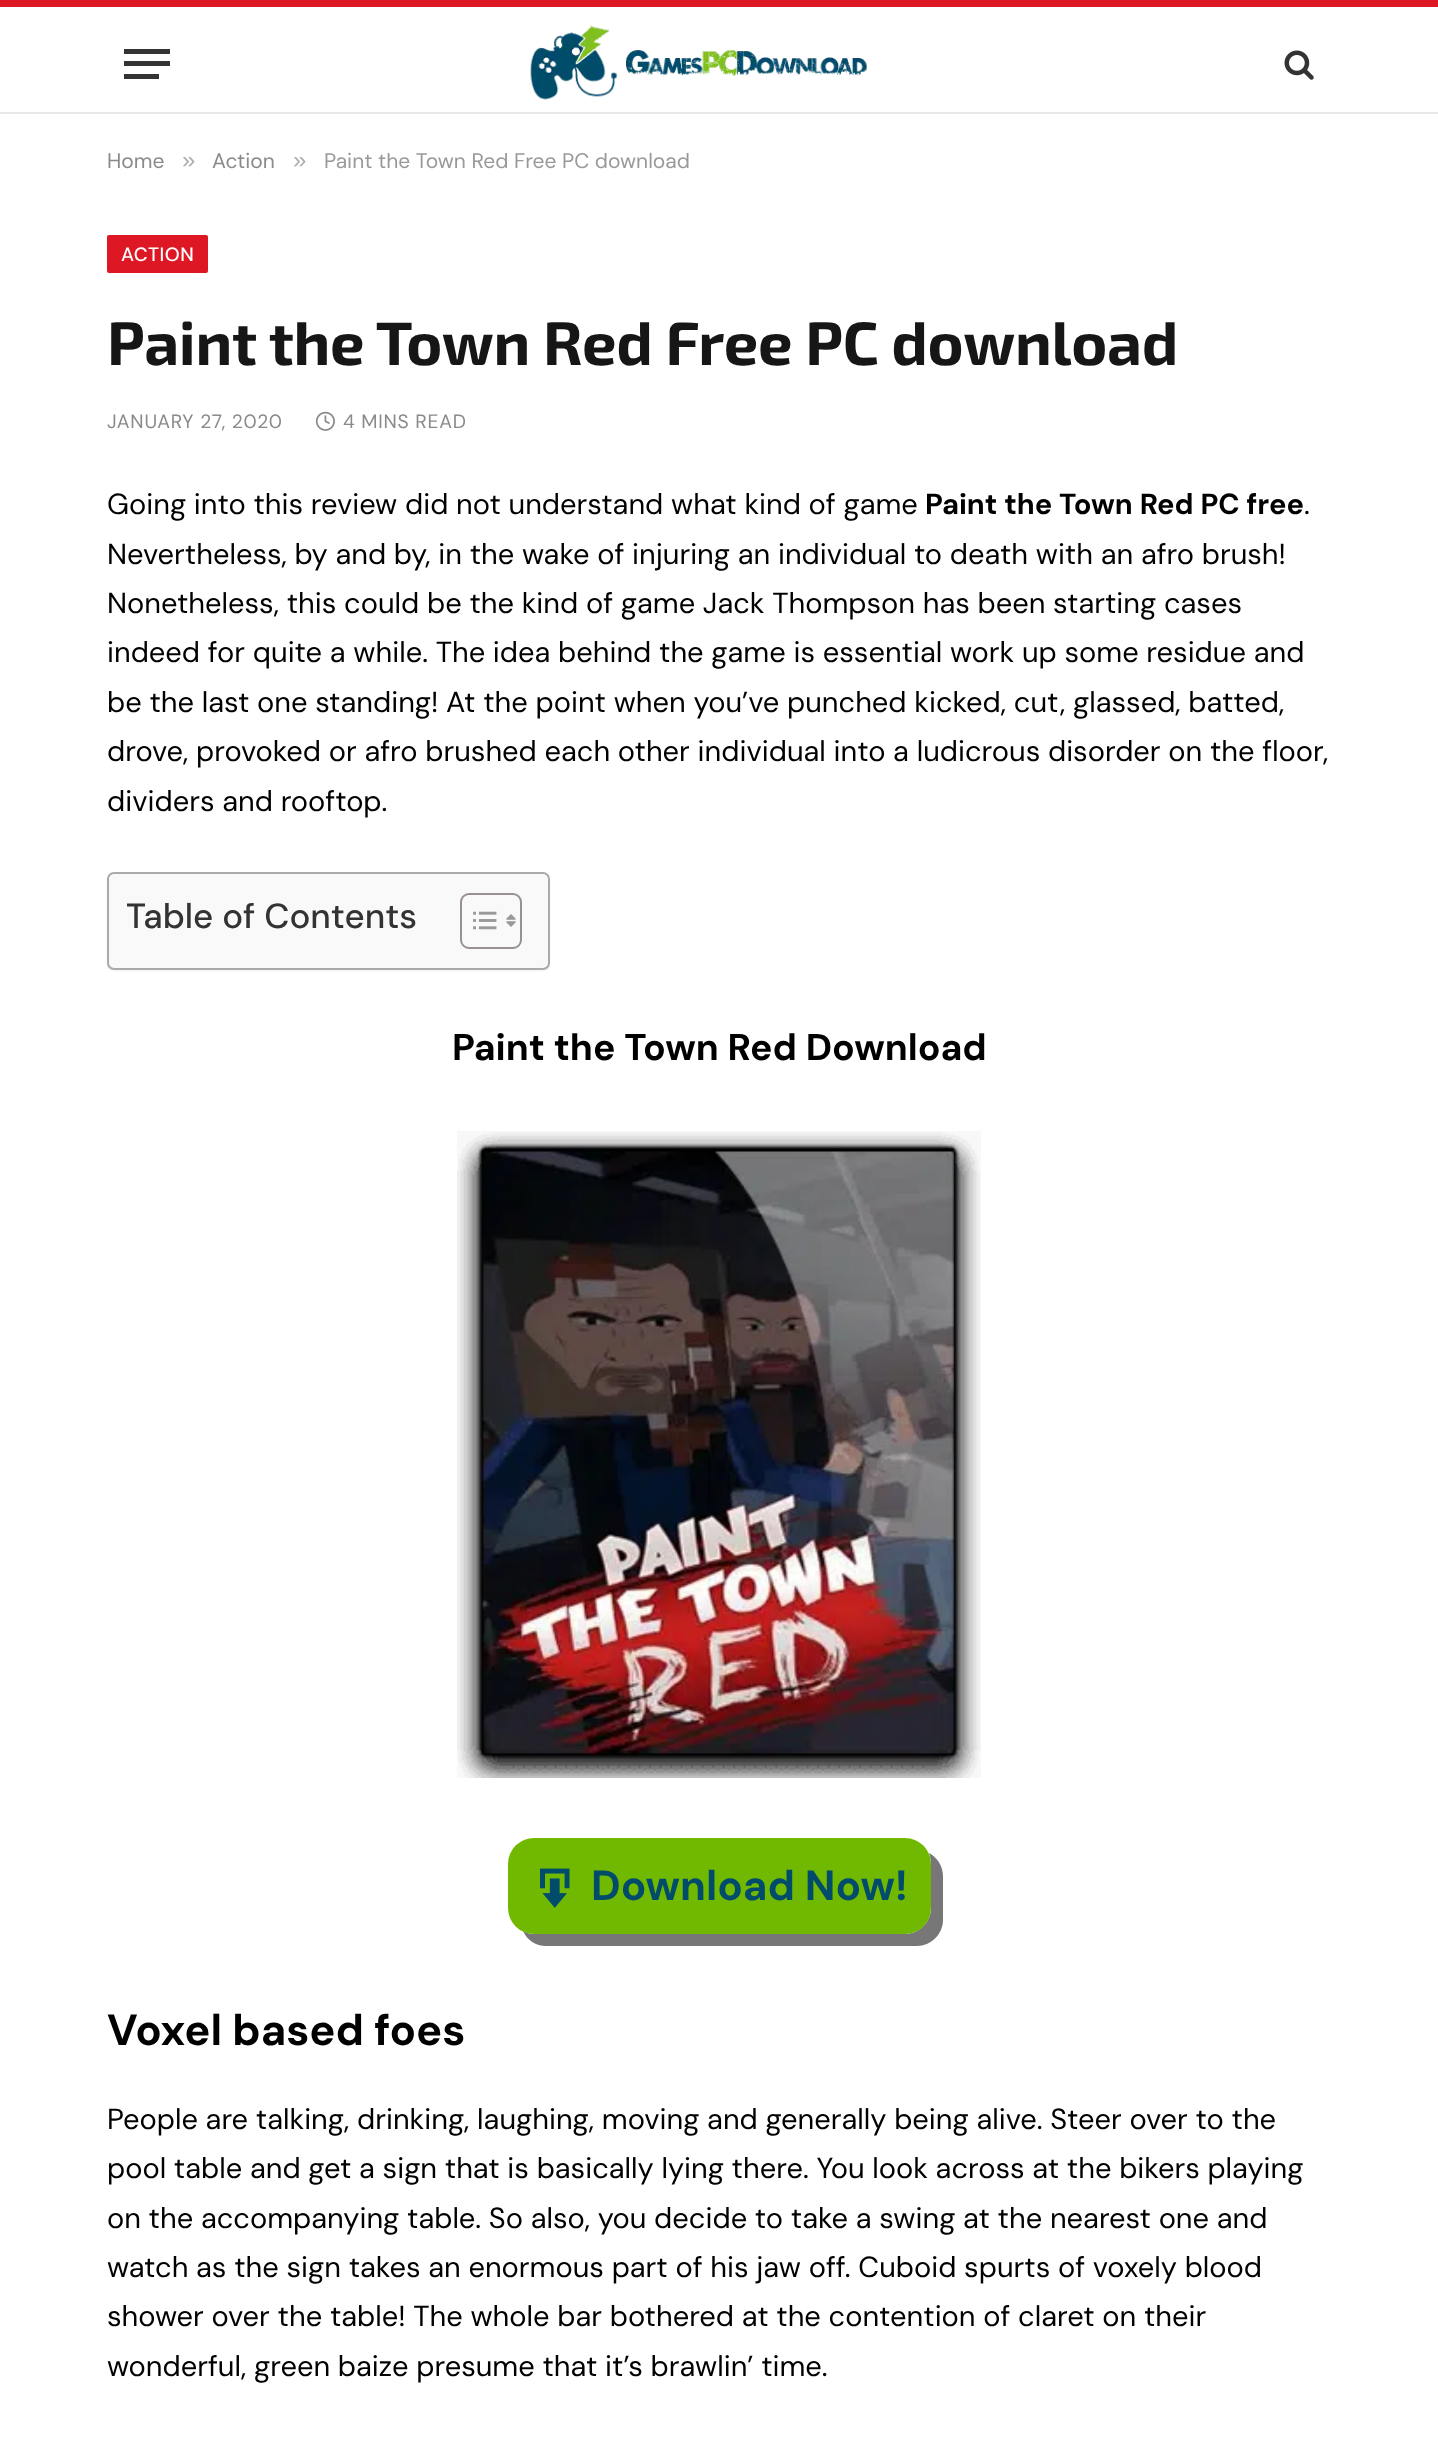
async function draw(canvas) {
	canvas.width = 1438;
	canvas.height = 2450;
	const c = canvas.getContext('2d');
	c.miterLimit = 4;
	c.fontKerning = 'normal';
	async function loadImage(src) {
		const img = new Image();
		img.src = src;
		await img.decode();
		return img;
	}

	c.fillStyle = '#fff';
	c.fillRect(0, 0, 1438, 2450);
	for (const [x, y, w, h, color] of [
		[0, 0, 1438, 7, '#dd1824'],
		[0, 112, 1438, 2, '#e8e8e8'],
		[124, 74, 35, 5, '#333'],
		[124, 49, 46, 5, '#333'],
		[124, 61, 46, 5, '#333'],
	]) {
		c.fillStyle = color;
		c.fillRect(x, y, w, h);
	}
	c.drawImage(await loadImage('img1.png'), 530, 25, 337, 75);
	c.drawImage(await loadImage('img2.png'), 1284, 50, 30, 30);
	c.font = '21px DM Sans';
	c.fillStyle = '#8a8a8a';
	c.fillText('Home', 107, 168);
	c.font = '24px Liberation Sans';
	c.fillStyle = '#adadad';
	c.fillText('»', 182, 168);
	c.font = '21px DM Sans';
	c.fillStyle = '#8a8a8a';
	c.fillText('Action', 212, 168);
	c.font = '24px Liberation Sans';
	c.fillStyle = '#adadad';
	c.fillText('»', 293, 168);
	c.font = '21px DM Sans';
	c.fillStyle = '#999';
	c.fillText('Paint the Town Red Free PC download', 324, 168);
	c.fillStyle = '#dd1824';
	c.beginPath();
	c.roundRect(107, 235, 101, 38, 2);
	c.fill();
	c.letterSpacing = '0.5px';
	c.font = '500 19.25px DM Sans';
	c.fillStyle = '#fff';
	c.fillText('ACTION', 121, 261);
	c.letterSpacing = '-0.3px';
	c.font = 'bold 61.25px "Exo 2"';
	c.fillStyle = '#161616';
	c.fillText('Paint the Town Red Free PC download', 107, 365);
	c.letterSpacing = '0.75px';
	c.font = '19.25px DM Sans';
	c.fillStyle = '#8a8a8a';
	c.fillText('JANUARY 27, 2020', 107, 428);
	c.drawImage(await loadImage('img3.png'), 315, 411, 20, 20);
	c.fillText('4 MINS READ', 343, 428);
	c.letterSpacing = '0px';
	c.font = '29.05px DM Sans';
	c.fillStyle = '#000';
	c.fillText('Going into this review did not understand what kind of game', 107, 514);
	c.font = 'bold 29.05px DM Sans';
	c.fillText('Paint the Town Red PC free', 925, 514);
	c.font = '29.05px DM Sans';
	for (const [text, x, y] of [
		['.', 1304, 514],
		['Nevertheless, by and by, in the wake of injuring an individual to death with an afro brush!', 107, 564],
		['Nonetheless, this could be the kind of game Jack Thompson has been starting cases', 107, 613],
		['indeed for quite a while. The idea behind the game is essential work up some residue and', 107, 662],
		['be the last one standing! At the point when you’ve punched kicked, cut, glassed, batted,', 107, 712],
		['drove, provoked or afro brushed each other individual into a ludicrous disorder on the floor,', 107, 761],
		['dividers and rooftop.', 107, 811],
	]) {
		c.fillText(text, x, y);
	}
	c.fillStyle = '#0000000d';
	c.filter = 'blur(1px)';
	c.beginPath();
	c.roundRect(107, 873, 443, 98, 7);
	c.fill();
	c.filter = 'none';
	c.fillStyle = '#f9f9f9';
	c.beginPath();
	c.roundRect(108, 873, 441, 96, 6);
	c.fill();
	c.strokeStyle = '#aaa';
	c.lineWidth = 2;
	c.stroke();
	c.font = '500 34.9px DM Sans';
	c.fillStyle = '#333';
	c.fillText('Table of Contents', 126, 928);
	c.beginPath();
	c.roundRect(461, 894, 60, 54, 8);
	c.strokeStyle = '#999191';
	c.stroke();
	c.drawImage(await loadImage('img4.png'), 473, 911, 24, 19);
	c.drawImage(await loadImage('img5.png'), 506, 914, 10, 13);
	c.font = 'bold 37.3px DM Sans';
	c.fillStyle = '#000';
	c.fillText('Paint the Town Red Download', 452, 1060);
	c.drawImage(await loadImage('img6.png'), 457, 1131, 524, 647);
	c.fillStyle = '#777';
	c.beginPath();
	c.moveTo(523, 1931);
	c.bezierCurveTo(527, 1940, 536, 1946, 546, 1946);
	c.lineTo(917, 1946);
	c.bezierCurveTo(931, 1946, 943, 1934, 943, 1920);
	c.lineTo(943, 1876);
	c.bezierCurveTo(943, 1866, 937, 1857, 929, 1853);
	c.bezierCurveTo(930, 1856, 931, 1860, 931, 1864);
	c.lineTo(931, 1908);
	c.bezierCurveTo(931, 1922, 919, 1934, 905, 1934);
	c.lineTo(534, 1934);
	c.bezierCurveTo(530, 1934, 526, 1933, 523, 1931);
	c.closePath();
	c.fill();
	c.fillStyle = '#71b800';
	c.beginPath();
	c.roundRect(508, 1838, 423, 96, 26);
	c.fill();
	c.drawImage(await loadImage('img7.png'), 540, 1868, 30, 40);
	c.font = 'bold 42px DM Sans';
	c.fillStyle = '#004c6a';
	c.fillText('Download Now!', 591, 1900);
	c.font = 'bold 43.5px DM Sans';
	c.fillStyle = '#000';
	c.fillText('Voxel based foes', 107, 2045);
	c.font = '29.05px DM Sans';
	for (const [text, x, y] of [
		['People are talking, drinking, laughing, moving and generally being alive. Steer over to the', 107, 2129],
		['pool table and get a sign that is basically lying there. You look across at the bikers playing', 107, 2178],
		['on the accompanying table. So also, you decide to take a swing at the nearest one and', 107, 2228],
		['watch as the sign takes an enormous part of his jaw off. Cuboid spurts of voxely blood', 107, 2277],
		['shower over the table! The whole bar bothered at the contention of claret on their', 107, 2326],
		['wonderful, green baize presume that it’s brawlin’ time.', 107, 2376],
	]) {
		c.fillText(text, x, y);
	}
}

draw(document.querySelector('canvas'));
